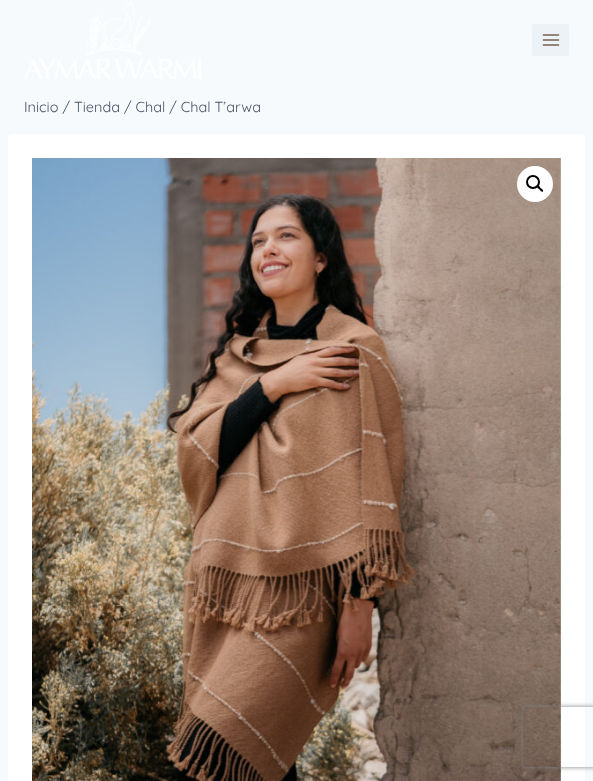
async function draw(canvas) {
	canvas.width = 593;
	canvas.height = 781;
	const c = canvas.getContext('2d');
	c.miterLimit = 4;
	c.fontKerning = 'normal';
	async function loadImage(src) {
		const img = new Image();
		img.src = src;
		await img.decode();
		return img;
	}

	c.fillStyle = '#f7fafc';
	c.fillRect(0, 0, 593, 781);
	c.drawImage(await loadImage('img1.png'), 24, 1, 177, 78);
	c.fillStyle = '#edf2f7';
	c.beginPath();
	c.roundRect(532, 24, 37, 32, 3);
	c.fill();
	c.drawImage(await loadImage('img2.png'), 542, 34, 18, 12);
	c.font = '14.5px Quicksand';
	c.fillStyle = '#4a5568';
	c.fillText('Inicio / Tienda / Chal / Chal T’arwa', 24, 112);
	c.fillStyle = '#fff';
	c.beginPath();
	c.roundRect(8, 134, 577, 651, 4);
	c.fill();
	c.drawImage(await loadImage('img3.png'), 32, 158, 529, 623);
	c.beginPath();
	c.arc(535, 184, 18, 0, 2 * Math.PI);
	c.fill();
	c.beginPath();
	c.arc(533, 182, 6, 0, 2 * Math.PI);
	c.strokeStyle = '#000';
	c.lineWidth = 2;
	c.stroke();
	c.fillStyle = '#000';
	c.beginPath();
	c.moveTo(537, 185.5);
	c.bezierCurveTo(538.5, 184.5, 540, 187, 540.5, 188);
	c.bezierCurveTo(541.5, 188.5, 544, 190, 543, 191.5);
	c.bezierCurveTo(541.5, 192.5, 540, 190, 539.5, 189.5);
	c.bezierCurveTo(538.5, 188.5, 536, 187, 537, 185.5);
	c.closePath();
	c.fill();
	c.save();
	c.beginPath();
	c.moveTo(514, 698);
	c.lineTo(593, 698);
	c.lineTo(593, 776);
	c.lineTo(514, 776);
	c.closePath();
	c.moveTo(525, 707);
	c.lineTo(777, 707);
	c.bezierCurveTo(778, 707, 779, 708, 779, 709);
	c.lineTo(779, 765);
	c.bezierCurveTo(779, 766, 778, 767, 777, 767);
	c.lineTo(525, 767);
	c.bezierCurveTo(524, 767, 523, 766, 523, 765);
	c.lineTo(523, 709);
	c.bezierCurveTo(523, 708, 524, 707, 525, 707);
	c.closePath();
	c.clip('evenodd');
	c.fillStyle = '#808080';
	c.filter = 'blur(2.5px)';
	c.beginPath();
	c.roundRect(523, 707, 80, 60, 2);
	c.fill();
	c.filter = 'none';
	c.restore();
}

draw(document.querySelector('canvas'));
